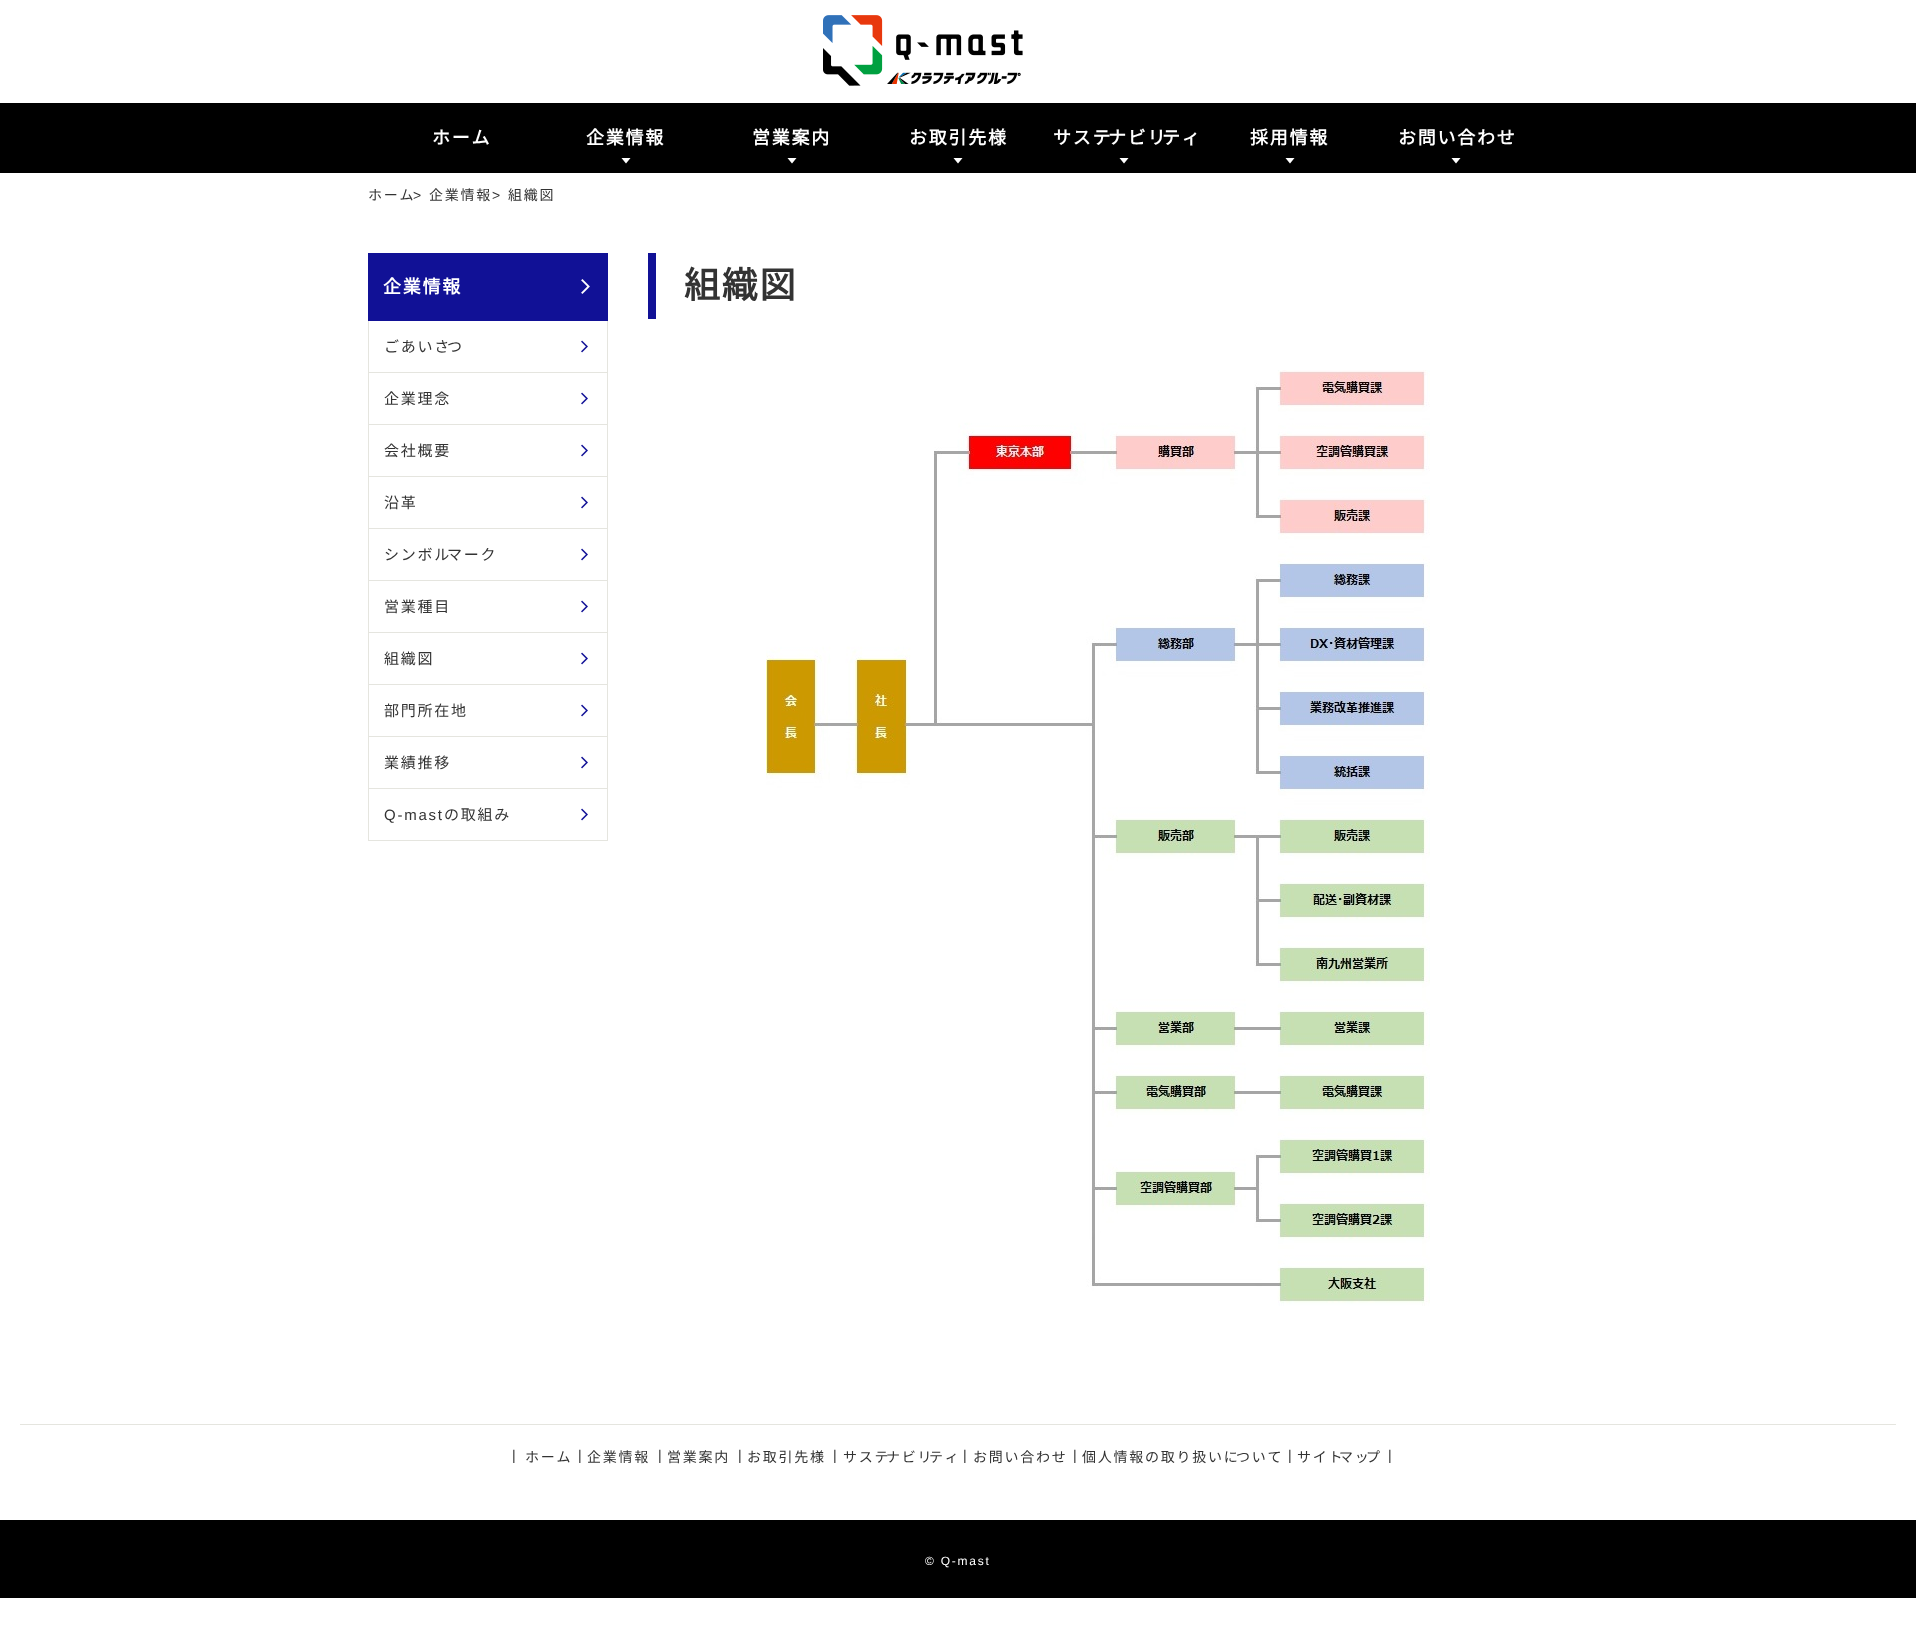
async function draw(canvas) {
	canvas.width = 1916;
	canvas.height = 1638;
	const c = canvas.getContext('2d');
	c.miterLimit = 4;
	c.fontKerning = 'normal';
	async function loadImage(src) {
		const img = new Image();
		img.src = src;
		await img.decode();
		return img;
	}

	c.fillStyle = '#fff';
	c.fillRect(0, 0, 1916, 1638);
	c.drawImage(await loadImage('img1.png'), 823, 15, 200, 71);
	c.fillStyle = '#000';
	c.fillRect(0, 103, 1916, 70);
	c.letterSpacing = '1.75px';
	c.font = 'bold 18px Noto Sans JP';
	c.fillStyle = '#fff';
	c.fillText('ホーム', 432, 144);
	c.beginPath();
	c.moveTo(626, 163.5);
	c.lineTo(621.5, 158);
	c.lineTo(630.5, 158);
	c.closePath();
	c.fill();
	c.fillText('企業情報', 586, 144);
	c.beginPath();
	c.moveTo(792, 163.5);
	c.lineTo(787.5, 158);
	c.lineTo(796.5, 158);
	c.closePath();
	c.fill();
	c.fillText('営業案内', 752, 144);
	c.beginPath();
	c.moveTo(958, 163.5);
	c.lineTo(953.5, 158);
	c.lineTo(962.5, 158);
	c.closePath();
	c.fill();
	c.fillText('お取引先様', 909, 144);
	c.beginPath();
	c.moveTo(1124, 163.5);
	c.lineTo(1119.5, 158);
	c.lineTo(1128.5, 158);
	c.closePath();
	c.fill();
	c.fillText('サステ', 1053, 144);
	c.fillText('ナビリ', 1108, 144);
	c.fillText('ティ', 1162, 144);
	c.beginPath();
	c.moveTo(1290, 163.5);
	c.lineTo(1285.5, 158);
	c.lineTo(1294.5, 158);
	c.closePath();
	c.fill();
	c.fillText('採用情報', 1250, 144);
	c.beginPath();
	c.moveTo(1456, 163.5);
	c.lineTo(1451.5, 158);
	c.lineTo(1460.5, 158);
	c.closePath();
	c.fill();
	c.fillText('お問い合わせ', 1398, 144);
	c.font = '100 14px Noto Sans JP';
	c.fillStyle = '#333';
	c.fillText('ホーム', 368, 200);
	c.font = '14px Liberation Sans';
	c.fillText('>', 413, 200);
	c.font = '100 14px Noto Sans JP';
	c.fillText('企業情報', 429, 200);
	c.font = '14px Liberation Sans';
	c.fillText('>', 492, 200);
	c.font = '100 14px Noto Sans JP';
	c.fillText('組織図', 508, 200);
	c.fillStyle = '#111196';
	c.fillRect(368, 253, 240, 68);
	c.drawImage(await loadImage('img2.png'), 581, 279, 9, 15);
	c.font = 'bold 18px Noto Sans JP';
	c.fillStyle = '#fff';
	c.fillText('企業情報', 383, 293);
	for (const [x, y, w, h, color] of [
		[607, 321, 1, 520, '#e5e5df'],
		[368, 840, 240, 1, '#e5e5df'],
		[368, 321, 1, 520, '#e5e5df'],
		[369, 372, 238, 1, '#e5e5df'],
	]) {
		c.fillStyle = color;
		c.fillRect(x, y, w, h);
	}
	c.drawImage(await loadImage('img3.png'), 581, 340, 7, 13);
	c.font = '100 15px Noto Sans JP';
	c.fillStyle = '#333';
	c.fillText('ごあいさ', 384, 352);
	c.fillText('つ', 447, 352);
	c.fillStyle = '#e5e5df';
	c.fillRect(369, 424, 238, 1);
	c.drawImage(await loadImage('img3.png'), 581, 392, 7, 13);
	c.fillStyle = '#333';
	c.fillText('企業理念', 384, 404);
	c.fillStyle = '#e5e5df';
	c.fillRect(369, 476, 238, 1);
	c.drawImage(await loadImage('img3.png'), 581, 444, 7, 13);
	c.fillStyle = '#333';
	c.fillText('会社概要', 384, 456);
	c.fillStyle = '#e5e5df';
	c.fillRect(369, 528, 238, 1);
	c.drawImage(await loadImage('img3.png'), 581, 496, 7, 13);
	c.fillStyle = '#333';
	c.fillText('沿革', 384, 508);
	c.fillStyle = '#e5e5df';
	c.fillRect(369, 580, 238, 1);
	c.drawImage(await loadImage('img3.png'), 581, 548, 7, 13);
	c.fillStyle = '#333';
	c.fillText('シンボル', 384, 560);
	c.fillText('マーク', 447, 560);
	c.fillStyle = '#e5e5df';
	c.fillRect(369, 632, 238, 1);
	c.drawImage(await loadImage('img3.png'), 581, 600, 7, 13);
	c.fillStyle = '#333';
	c.fillText('営業種目', 384, 612);
	c.fillStyle = '#e5e5df';
	c.fillRect(369, 684, 238, 1);
	c.drawImage(await loadImage('img3.png'), 581, 652, 7, 13);
	c.fillStyle = '#333';
	c.fillText('組織図', 384, 664);
	c.fillStyle = '#e5e5df';
	c.fillRect(369, 736, 238, 1);
	c.drawImage(await loadImage('img3.png'), 581, 704, 7, 13);
	c.fillStyle = '#333';
	c.fillText('部門所在地', 384, 716);
	c.fillStyle = '#e5e5df';
	c.fillRect(369, 788, 238, 1);
	c.drawImage(await loadImage('img3.png'), 581, 756, 7, 13);
	c.fillStyle = '#333';
	c.fillText('業績推移', 384, 768);
	c.drawImage(await loadImage('img3.png'), 581, 808, 7, 13);
	c.font = '15px Liberation Sans';
	c.fillText('Q-mast', 384, 820);
	c.font = '100 15px Noto Sans JP';
	c.fillText('の取組み', 444, 820);
	c.fillStyle = '#111196';
	c.fillRect(648, 253, 8, 66);
	c.font = 'bold 36px Noto Sans JP';
	c.fillStyle = '#333';
	c.fillText('組織図', 684, 298);
	c.drawImage(await loadImage('img4.png'), 766, 370, 664, 936);
	c.fillStyle = '#e5e5df';
	c.fillRect(20, 1424, 1876, 1);
	c.font = '14px Liberation Sans';
	c.fillStyle = '#333';
	c.fillText('|', 512, 1460);
	c.font = '100 14px Noto Sans JP';
	c.fillText('ホーム', 525, 1462);
	c.font = '14px Liberation Sans';
	c.fillText('|', 578, 1460);
	c.font = '100 14px Noto Sans JP';
	c.fillText('企業情報', 587, 1462);
	c.font = '14px Liberation Sans';
	c.fillText('|', 658, 1460);
	c.font = '100 14px Noto Sans JP';
	c.fillText('営業案内', 667, 1462);
	c.font = '14px Liberation Sans';
	c.fillText('|', 738, 1460);
	c.font = '100 14px Noto Sans JP';
	c.fillText('お取引先様', 747, 1462);
	c.font = '14px Liberation Sans';
	c.fillText('|', 833, 1460);
	c.font = '100 14px Noto Sans JP';
	c.fillText('サステ', 843, 1462);
	c.fillText('ナビリ', 886, 1462);
	c.fillText('ティ', 929, 1462);
	c.font = '14px Liberation Sans';
	c.fillText('|', 963, 1460);
	c.font = '100 14px Noto Sans JP';
	c.fillText('お問い合わせ', 973, 1462);
	c.font = '14px Liberation Sans';
	c.fillText('|', 1073, 1460);
	c.font = '100 14px Noto Sans JP';
	c.fillText('個人情報の取り扱いに', 1082, 1462);
	c.fillText('ついて', 1236, 1462);
	c.font = '14px Liberation Sans';
	c.fillText('|', 1288, 1460);
	c.font = '100 14px Noto Sans JP';
	c.fillText('サイト', 1297, 1462);
	c.fillText('マッ', 1339, 1462);
	c.fillText('プ', 1366, 1462);
	c.font = '14px Liberation Sans';
	c.fillText('|', 1388, 1460);
	c.fillStyle = '#000';
	c.fillRect(0, 1520, 1916, 78);
	c.font = '12px Liberation Sans';
	c.fillStyle = '#fff';
	c.fillText('© Q-mast', 925, 1565);
}

draw(document.querySelector('canvas'));
